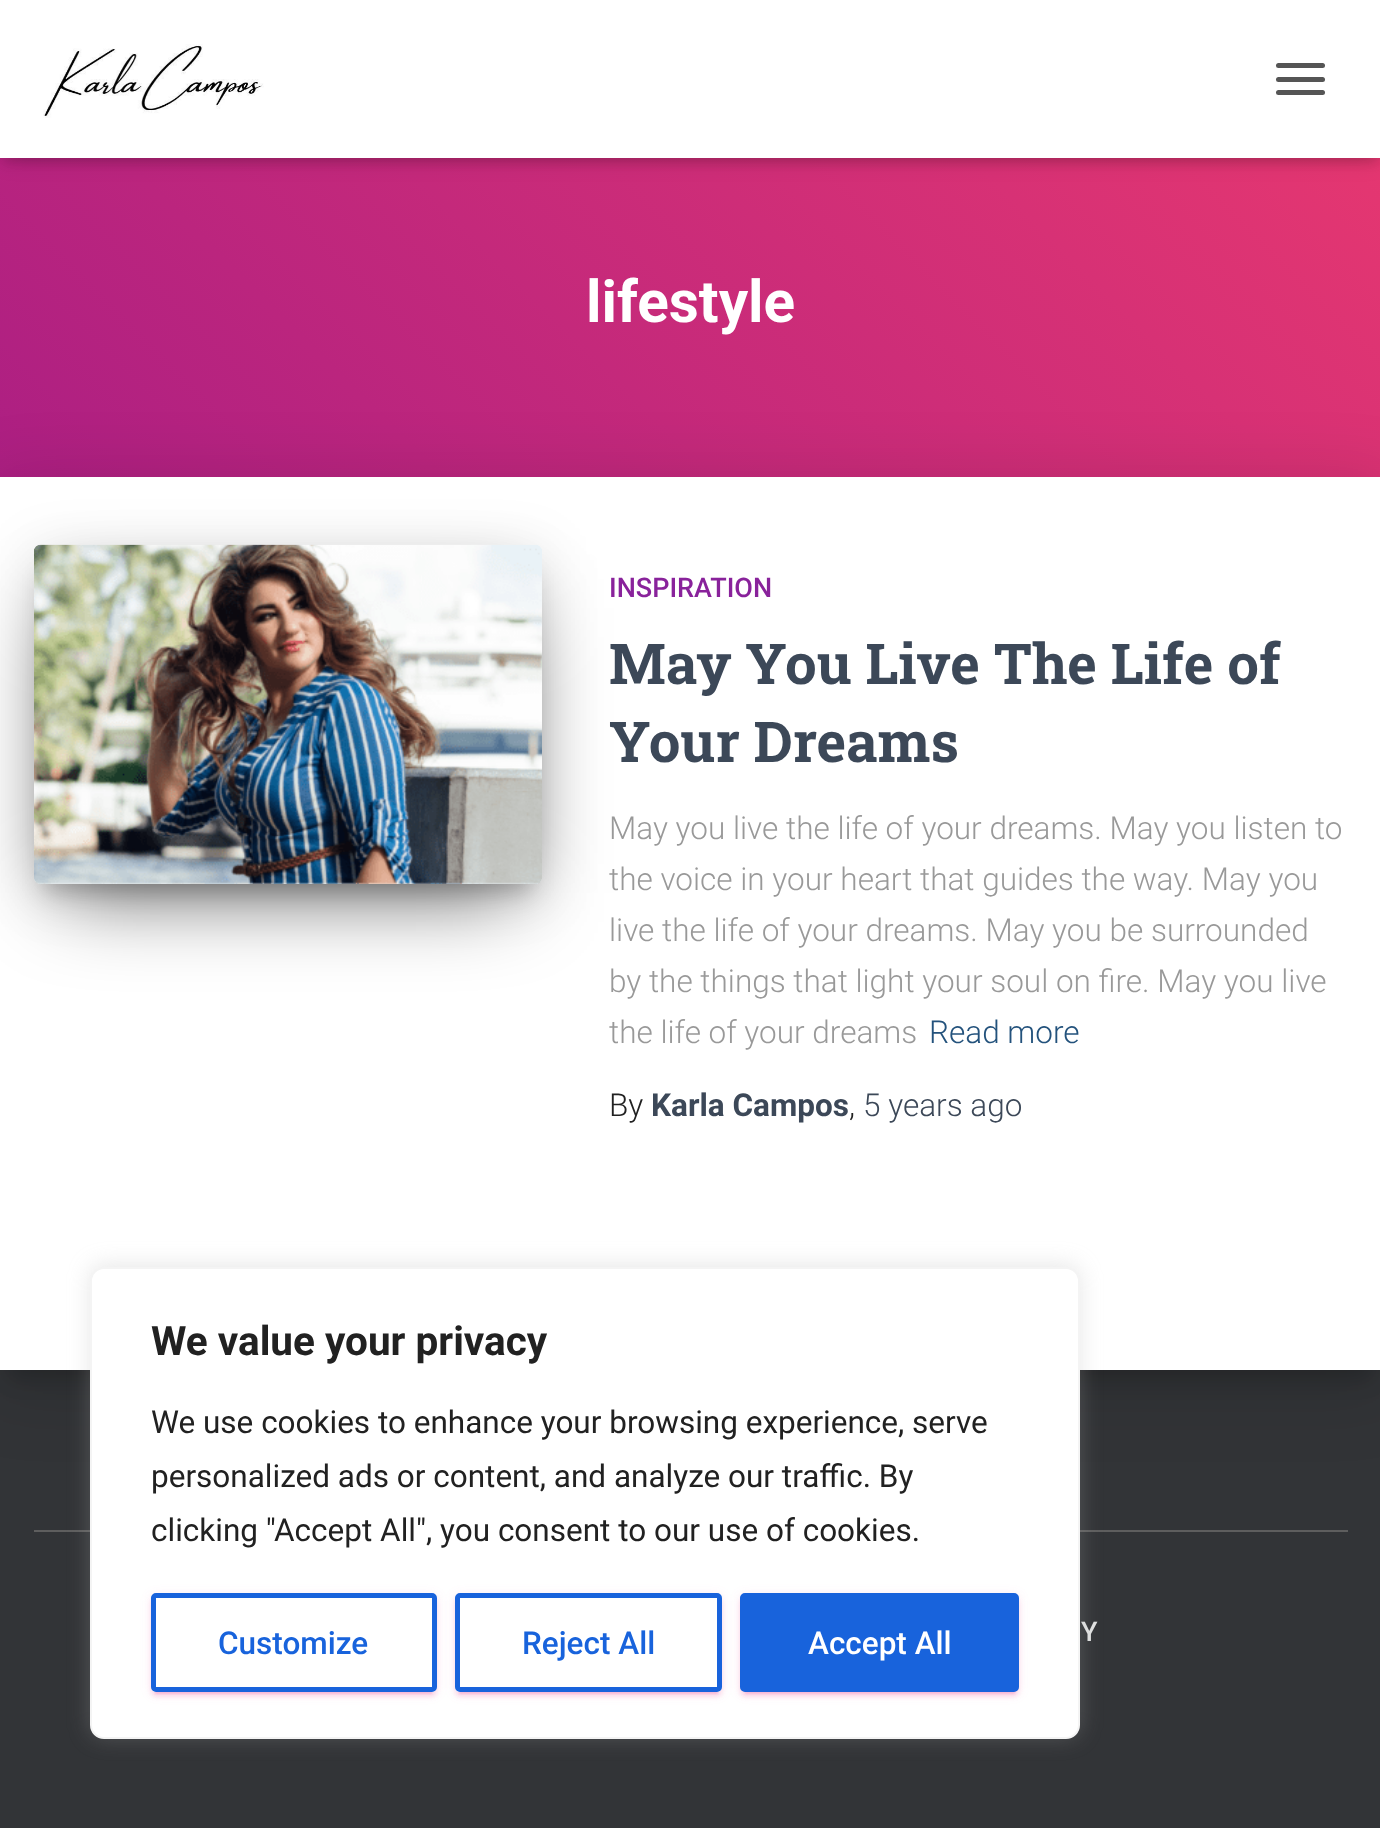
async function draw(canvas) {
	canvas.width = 1380;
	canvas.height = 1828;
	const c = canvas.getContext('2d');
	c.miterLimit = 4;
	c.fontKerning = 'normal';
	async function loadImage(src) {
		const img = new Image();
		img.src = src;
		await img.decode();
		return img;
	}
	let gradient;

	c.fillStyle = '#323437';
	c.fillRect(0, 0, 1380, 1828);
	gradient = c.createLinearGradient(190, 802, 1191, -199);
	gradient.addColorStop(0, '#a81d84');
	gradient.addColorStop(1, '#ea396f');
	c.fillStyle = gradient;
	c.fillRect(0, 158, 1380, 319);
	c.fillStyle = '#0000001a';
	c.filter = 'blur(5.5px)';
	c.beginPath();
	c.rect(5, 14, 1372, 148);
	c.fill();
	c.filter = 'none';
	c.fillStyle = '#0000001f';
	c.filter = 'blur(11px)';
	c.beginPath();
	c.rect(0, 2, 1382, 158);
	c.fill();
	c.filter = 'none';
	c.fillStyle = '#0000006b';
	c.filter = 'blur(11px)';
	c.beginPath();
	c.rect(14, 16, 1354, 130);
	c.fill();
	c.filter = 'none';
	c.fillStyle = '#fff';
	c.fillRect(0, 0, 1380, 158);
	c.drawImage(await loadImage('img1.png'), 43, 44, 221, 74);
	c.fillStyle = '#555';
	c.beginPath();
	c.roundRect(1276, 63, 49, 5, 2.5);
	c.fill();
	c.beginPath();
	c.roundRect(1276, 77, 49, 5, 2.5);
	c.fill();
	c.beginPath();
	c.roundRect(1276, 90, 49, 5, 2.5);
	c.fill();
	c.font = 'bold 58.5px Roboto';
	c.fillStyle = '#fff';
	c.fillText('lifestyle', 586, 322);
	c.fillStyle = '#00000033';
	c.filter = 'blur(11px)';
	c.beginPath();
	c.rect(11, 506, 1359, 871);
	c.fill();
	c.filter = 'none';
	c.fillStyle = '#0000001f';
	c.filter = 'blur(34px)';
	c.beginPath();
	c.rect(-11, 479, 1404, 916);
	c.fill();
	c.filter = 'none';
	c.fillStyle = '#fff';
	c.fillRect(0, 477, 1380, 893);
	c.save();
	c.beginPath();
	c.moveTo(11, 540);
	c.lineTo(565, 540);
	c.lineTo(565, 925);
	c.lineTo(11, 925);
	c.closePath();
	c.moveTo(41, 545);
	c.lineTo(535, 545);
	c.bezierCurveTo(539, 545, 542, 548, 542, 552);
	c.lineTo(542, 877);
	c.bezierCurveTo(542, 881, 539, 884, 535, 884);
	c.lineTo(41, 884);
	c.bezierCurveTo(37, 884, 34, 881, 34, 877);
	c.lineTo(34, 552);
	c.bezierCurveTo(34, 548, 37, 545, 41, 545);
	c.closePath();
	c.clip('evenodd');
	c.fillStyle = '#00000033';
	c.filter = 'blur(11px)';
	c.beginPath();
	c.rect(45, 574, 486, 317);
	c.fill();
	c.filter = 'none';
	c.restore();
	c.save();
	c.beginPath();
	c.moveTo(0, 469);
	c.lineTo(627, 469);
	c.lineTo(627, 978);
	c.lineTo(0, 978);
	c.closePath();
	c.moveTo(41, 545);
	c.lineTo(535, 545);
	c.bezierCurveTo(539, 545, 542, 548, 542, 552);
	c.lineTo(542, 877);
	c.bezierCurveTo(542, 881, 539, 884, 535, 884);
	c.lineTo(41, 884);
	c.bezierCurveTo(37, 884, 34, 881, 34, 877);
	c.lineTo(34, 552);
	c.bezierCurveTo(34, 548, 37, 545, 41, 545);
	c.closePath();
	c.clip('evenodd');
	c.fillStyle = '#0000001f';
	c.filter = 'blur(28px)';
	c.beginPath();
	c.roundRect(34, 554, 508, 339, 7);
	c.fill();
	c.filter = 'none';
	c.restore();
	c.save();
	c.beginPath();
	c.moveTo(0, 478);
	c.lineTo(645, 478);
	c.lineTo(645, 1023);
	c.lineTo(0, 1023);
	c.closePath();
	c.moveTo(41, 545);
	c.lineTo(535, 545);
	c.bezierCurveTo(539, 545, 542, 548, 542, 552);
	c.lineTo(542, 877);
	c.bezierCurveTo(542, 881, 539, 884, 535, 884);
	c.lineTo(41, 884);
	c.bezierCurveTo(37, 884, 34, 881, 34, 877);
	c.lineTo(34, 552);
	c.bezierCurveTo(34, 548, 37, 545, 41, 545);
	c.closePath();
	c.clip('evenodd');
	c.fillStyle = '#0000008f';
	c.filter = 'blur(43px)';
	c.beginPath();
	c.rect(61, 608, 454, 285);
	c.fill();
	c.filter = 'none';
	c.restore();
	c.drawImage(await loadImage('img2.png'), 34, 544, 508, 340);
	c.font = '500 27px Roboto';
	c.fillStyle = '#89229b';
	c.fillText('INSPIRATION', 609, 597);
	c.font = 'bold 56.25px Roboto Slab';
	c.fillStyle = '#3c4858';
	c.fillText('May You Live The Life of', 609, 684);
	c.fillText('Your Dreams', 609, 762);
	c.font = '300 31.5px Roboto';
	c.fillStyle = '#999';
	for (const [text, x, y] of [
		['May you live the life of your dreams. May you listen to', 609, 839],
		['the voice in your heart that guides the way. May you', 609, 890],
		['live the life of your dreams. May you be surrounded', 609, 941],
		['by the things that light your soul on fire. May you live', 609, 992],
		['the life of your dreams', 609, 1043],
	]) {
		c.fillText(text, x, y);
	}
	c.fillStyle = '#23527c';
	c.fillText('Read more', 929, 1043);
	c.fillStyle = '#212121';
	c.fillText('By', 609, 1116);
	c.font = 'bold 31.5px Roboto';
	c.fillStyle = '#3c4858';
	c.fillText('Karla Campos', 651, 1116);
	c.font = '300 31.5px Roboto';
	c.fillStyle = '#212121';
	c.fillText(',', 849, 1116);
	c.fillStyle = '#3c4858';
	c.fillText('5 years ago', 863, 1116);
	c.fillStyle = '#5e5e5e';
	c.fillRect(34, 1530, 1314, 2);
	c.font = '500 27px Roboto';
	c.fillStyle = '#e2e3e3';
	c.fillText('Y', 1081, 1641);
	c.fillStyle = '#acabab4d';
	c.filter = 'blur(11px)';
	c.beginPath();
	c.roundRect(90, 1265, 990, 472, 14);
	c.fill();
	c.filter = 'none';
	c.fillStyle = '#fff';
	c.beginPath();
	c.roundRect(91, 1268, 988, 470, 13);
	c.fill();
	c.strokeStyle = '#f4f4f4';
	c.lineWidth = 2;
	c.stroke();
	c.font = 'bold 40.5px Roboto';
	c.fillStyle = '#212121';
	c.fillText('We value your privacy', 151, 1355);
	c.font = '31.5px Roboto';
	for (const [text, x, y] of [
		['We use cookies to enhance your browsing experience, serve', 151, 1433],
		['personalized ads or content, and analyze our traffic. By', 151, 1487],
		['clicking "Accept All", you consent to our use of cookies.', 151, 1541],
	]) {
		c.fillText(text, x, y);
	}
	c.save();
	c.beginPath();
	c.moveTo(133, 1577);
	c.lineTo(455, 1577);
	c.lineTo(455, 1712);
	c.lineTo(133, 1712);
	c.closePath();
	c.moveTo(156, 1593);
	c.lineTo(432, 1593);
	c.bezierCurveTo(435, 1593, 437, 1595, 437, 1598);
	c.lineTo(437, 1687);
	c.bezierCurveTo(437, 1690, 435, 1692, 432, 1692);
	c.lineTo(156, 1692);
	c.bezierCurveTo(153, 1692, 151, 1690, 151, 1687);
	c.lineTo(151, 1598);
	c.bezierCurveTo(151, 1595, 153, 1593, 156, 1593);
	c.closePath();
	c.clip('evenodd');
	c.fillStyle = '#ed3d911f';
	c.filter = 'blur(5.5px)';
	c.beginPath();
	c.roundRect(151, 1595, 286, 99, 5);
	c.fill();
	c.filter = 'none';
	c.restore();
	c.save();
	c.beginPath();
	c.rect(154, 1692, 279, 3);
	c.clip();
	c.fillStyle = '#ed3d9133';
	c.filter = 'blur(1px)';
	c.beginPath();
	c.rect(155, 1604, 277, 90);
	c.fill();
	c.filter = 'none';
	c.restore();
	c.save();
	c.beginPath();
	c.moveTo(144, 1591);
	c.lineTo(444, 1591);
	c.lineTo(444, 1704);
	c.lineTo(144, 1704);
	c.closePath();
	c.moveTo(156, 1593);
	c.lineTo(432, 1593);
	c.bezierCurveTo(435, 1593, 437, 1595, 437, 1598);
	c.lineTo(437, 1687);
	c.bezierCurveTo(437, 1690, 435, 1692, 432, 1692);
	c.lineTo(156, 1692);
	c.bezierCurveTo(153, 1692, 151, 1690, 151, 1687);
	c.lineTo(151, 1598);
	c.bezierCurveTo(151, 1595, 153, 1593, 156, 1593);
	c.closePath();
	c.clip('evenodd');
	c.fillStyle = '#ed3d9124';
	c.filter = 'blur(2px)';
	c.beginPath();
	c.roundRect(151, 1598, 286, 99, 5);
	c.fill();
	c.filter = 'none';
	c.restore();
	c.beginPath();
	c.roundRect(153.5, 1595.5, 281, 94, 2.5);
	c.strokeStyle = '#1863dc';
	c.lineWidth = 5;
	c.stroke();
	c.font = '500 31.5px Roboto';
	c.fillStyle = '#1863dc';
	c.fillText('Customize', 218, 1654);
	c.save();
	c.beginPath();
	c.moveTo(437, 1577);
	c.lineTo(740, 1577);
	c.lineTo(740, 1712);
	c.lineTo(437, 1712);
	c.closePath();
	c.moveTo(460, 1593);
	c.lineTo(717, 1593);
	c.bezierCurveTo(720, 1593, 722, 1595, 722, 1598);
	c.lineTo(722, 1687);
	c.bezierCurveTo(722, 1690, 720, 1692, 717, 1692);
	c.lineTo(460, 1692);
	c.bezierCurveTo(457, 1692, 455, 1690, 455, 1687);
	c.lineTo(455, 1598);
	c.bezierCurveTo(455, 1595, 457, 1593, 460, 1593);
	c.closePath();
	c.clip('evenodd');
	c.fillStyle = '#ed3d911f';
	c.filter = 'blur(5.5px)';
	c.beginPath();
	c.roundRect(455, 1595, 267, 99, 5);
	c.fill();
	c.filter = 'none';
	c.restore();
	c.save();
	c.beginPath();
	c.rect(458, 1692, 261, 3);
	c.clip();
	c.fillStyle = '#ed3d9133';
	c.filter = 'blur(1px)';
	c.beginPath();
	c.rect(459, 1604, 259, 90);
	c.fill();
	c.filter = 'none';
	c.restore();
	c.save();
	c.beginPath();
	c.moveTo(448, 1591);
	c.lineTo(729, 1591);
	c.lineTo(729, 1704);
	c.lineTo(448, 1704);
	c.closePath();
	c.moveTo(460, 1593);
	c.lineTo(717, 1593);
	c.bezierCurveTo(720, 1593, 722, 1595, 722, 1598);
	c.lineTo(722, 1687);
	c.bezierCurveTo(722, 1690, 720, 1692, 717, 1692);
	c.lineTo(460, 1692);
	c.bezierCurveTo(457, 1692, 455, 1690, 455, 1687);
	c.lineTo(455, 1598);
	c.bezierCurveTo(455, 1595, 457, 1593, 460, 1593);
	c.closePath();
	c.clip('evenodd');
	c.fillStyle = '#ed3d9124';
	c.filter = 'blur(2px)';
	c.beginPath();
	c.roundRect(455, 1598, 267, 99, 5);
	c.fill();
	c.filter = 'none';
	c.restore();
	c.beginPath();
	c.roundRect(457.5, 1595.5, 262, 94, 2.5);
	c.stroke();
	c.fillText('Reject All', 522, 1654);
	c.fillStyle = '#ed3d911f';
	c.filter = 'blur(5.5px)';
	c.beginPath();
	c.roundRect(740, 1595, 279, 99, 5);
	c.fill();
	c.filter = 'none';
	c.fillStyle = '#ed3d9133';
	c.filter = 'blur(1px)';
	c.beginPath();
	c.rect(745, 1604, 270, 90);
	c.fill();
	c.filter = 'none';
	c.fillStyle = '#ed3d9124';
	c.filter = 'blur(2px)';
	c.beginPath();
	c.roundRect(740, 1598, 279, 99, 5);
	c.fill();
	c.filter = 'none';
	c.fillStyle = '#1863dc';
	c.beginPath();
	c.roundRect(742.5, 1595.5, 274, 94, 2.5);
	c.fill();
	c.stroke();
	c.fillStyle = '#fff';
	c.fillText('Accept All', 808, 1654);
}

draw(document.querySelector('canvas'));
